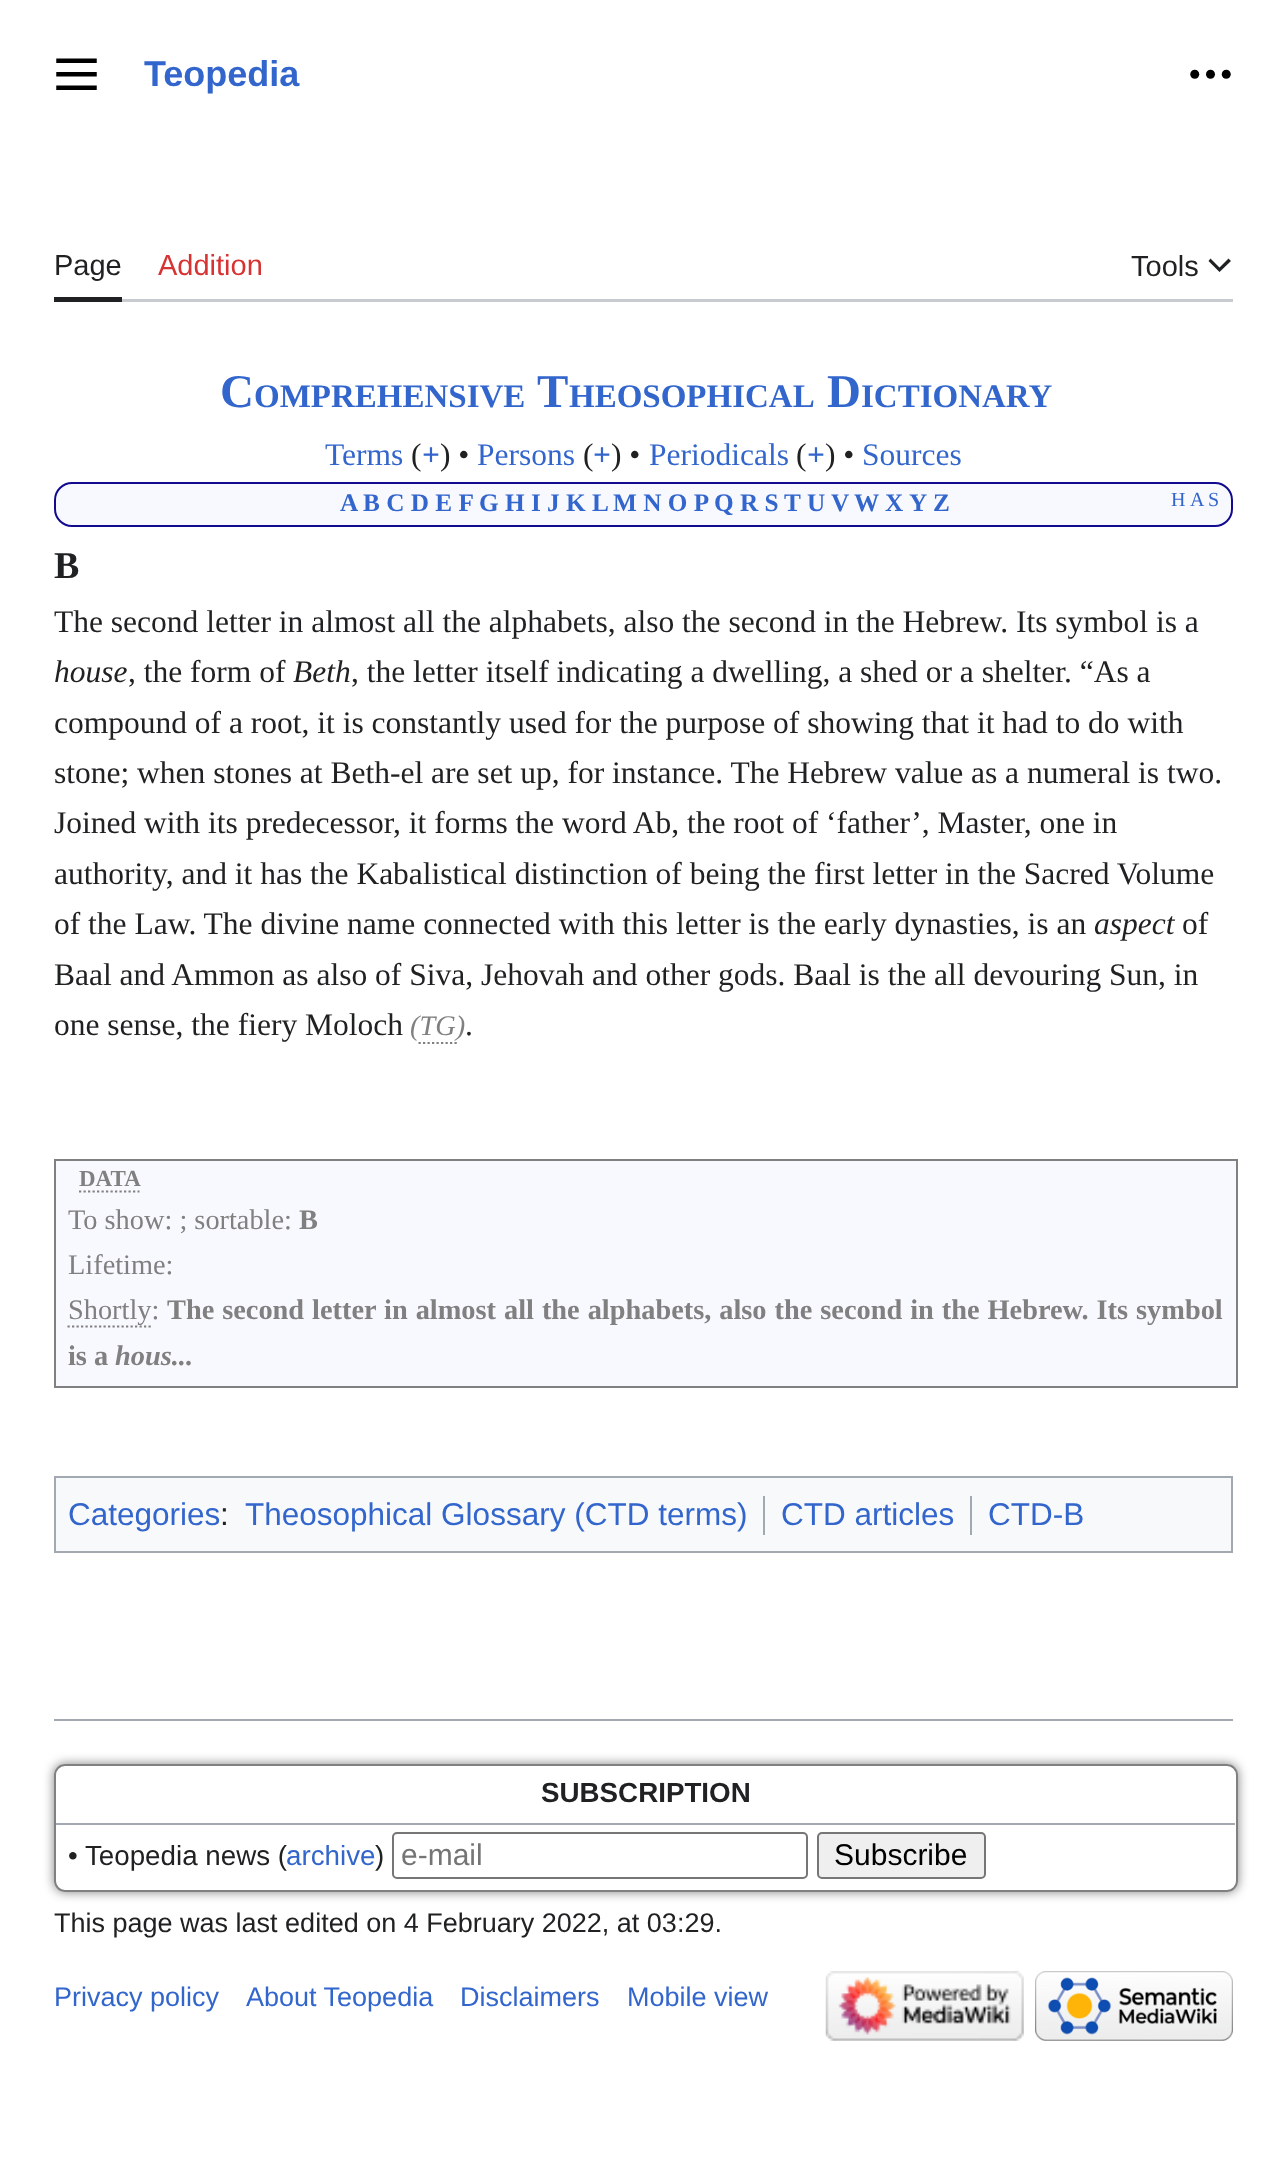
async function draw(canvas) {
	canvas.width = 1287;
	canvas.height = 2157;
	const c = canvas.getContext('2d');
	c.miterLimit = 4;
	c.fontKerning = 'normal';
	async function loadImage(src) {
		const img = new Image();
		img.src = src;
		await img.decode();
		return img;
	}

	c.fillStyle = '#fff';
	c.fillRect(0, 0, 1287, 2157);
	c.drawImage(await loadImage('img1.png'), 56, 58, 41, 32);
	c.font = 'bold 36px Liberation Sans';
	c.fillStyle = '#36c';
	c.fillText('Teopedia', 144, 86);
	c.drawImage(await loadImage('img2.png'), 1190, 69, 41, 10);
	c.fillStyle = '#c8ccd1';
	c.fillRect(122, 299, 1111, 3);
	c.fillStyle = '#202122';
	c.fillRect(54, 297, 68, 5);
	c.font = '29px Liberation Sans';
	c.fillText('Page', 54, 275);
	c.fillStyle = '#d73333';
	c.fillText('Addition', 158, 275);
	c.fillStyle = '#202122';
	c.fillText('Tools', 1131, 276);
	c.beginPath();
	c.moveTo(1231, 261);
	c.lineTo(1228.5, 258.5);
	c.lineTo(1219.5, 267.5);
	c.lineTo(1210.5, 258.5);
	c.lineTo(1208.5, 261);
	c.lineTo(1219.5, 272);
	c.lineTo(1231, 261);
	c.fill();
	c.font = 'bold 47px Liberation Serif';
	c.fillStyle = '#36c';
	c.fillText('C', 220, 407);
	c.font = 'bold 33px Liberation Serif';
	c.fillText('OMPREHENSIVE', 254, 407);
	c.font = 'bold 47px Liberation Serif';
	c.fillText('T', 537, 407);
	c.font = 'bold 33px Liberation Serif';
	c.fillText('HEOSOPHICAL', 569, 407);
	c.font = 'bold 47px Liberation Serif';
	c.fillText('D', 827, 407);
	c.font = 'bold 33px Liberation Serif';
	c.fillText('ICTIONARY', 861, 407);
	c.font = '31.5px Liberation Serif';
	c.fillText('Terms', 325, 465);
	c.fillStyle = '#202122';
	c.fillText('(', 411, 465);
	c.font = 'bold 31.5px Liberation Serif';
	c.fillStyle = '#36c';
	c.fillText('+', 422, 465);
	c.font = '31.5px Liberation Serif';
	c.fillStyle = '#202122';
	c.fillText(') •', 440, 465);
	c.fillStyle = '#36c';
	c.fillText('Persons', 477, 465);
	c.fillStyle = '#202122';
	c.fillText('(', 583, 465);
	c.font = 'bold 31.5px Liberation Serif';
	c.fillStyle = '#36c';
	c.fillText('+', 593, 465);
	c.font = '31.5px Liberation Serif';
	c.fillStyle = '#202122';
	c.fillText(') •', 611, 465);
	c.fillStyle = '#36c';
	c.fillText('Periodicals', 649, 465);
	c.fillStyle = '#202122';
	c.fillText('(', 796, 465);
	c.font = 'bold 31.5px Liberation Serif';
	c.fillStyle = '#36c';
	c.fillText('+', 807, 465);
	c.font = '31.5px Liberation Serif';
	c.fillStyle = '#202122';
	c.fillText(') •', 825, 465);
	c.fillStyle = '#36c';
	c.fillText('Sources', 862, 465);
	c.fillStyle = '#f8f8ff';
	c.beginPath();
	c.roundRect(55, 483, 1177, 43, 17);
	c.fill();
	c.strokeStyle = '#120a8f';
	c.lineWidth = 2;
	c.stroke();
	c.font = 'bold 25.25px Liberation Serif';
	c.fillStyle = '#36c';
	for (const [text, x, y] of [
		['A', 340, 511],
		['B C D E F', 363, 511],
		['G H I J K L', 479, 511],
		['M N O P', 613, 511],
		['Q R S', 714, 511],
		['T', 784, 511],
		['U', 807, 511],
		['V', 831, 511],
		['W', 854, 511],
		['X', 885, 511],
		['Y', 909, 511],
		['Z', 933, 511],
	]) {
		c.fillText(text, x, y);
	}
	c.font = '20px Liberation Serif';
	for (const [text, x, y] of [
		['H', 1171, 506],
		['A', 1190, 506],
		['S', 1208, 506],
	]) {
		c.fillText(text, x, y);
	}
	c.font = 'bold 38px Liberation Serif';
	c.fillStyle = '#202122';
	c.fillText('B', 54, 578);
	c.font = '31.5px Liberation Serif';
	c.fillText('The second letter in almost all the alphabets, also the second in the Hebrew. Its symbol is a', 54, 632);
	c.font = 'italic 31.5px Liberation Serif';
	c.fillText('house', 54, 682);
	c.font = '31.5px Liberation Serif';
	c.fillText(', the form of', 128, 682);
	c.font = 'italic 31.5px Liberation Serif';
	c.fillText('Beth', 293, 682);
	c.font = '31.5px Liberation Serif';
	for (const [text, x, y] of [
		[', the letter itself indicating a dwelling, a shed or a shelter. “As a', 351, 682],
		['compound of a root, it is constantly used for the purpose of showing that it had to do with', 54, 733],
		['stone; when stones at Beth‐el are set up, for instance. The Hebrew value as a numeral is two.', 54, 783],
		['Joined with its predecessor, it forms the word Ab, the root of ‘father’, Master, one in', 54, 833],
		['authority, and it has the Kabalistical distinction of being the first letter in the Sacred Volume', 54, 884],
		['of the Law. The divine name connected with this letter is the early dynasties, is an', 54, 934],
	]) {
		c.fillText(text, x, y);
	}
	c.font = 'italic 31.5px Liberation Serif';
	c.fillText('aspect', 1094, 934);
	c.font = '31.5px Liberation Serif';
	for (const [text, x, y] of [
		['of', 1182, 934],
		['Baal and Ammon as also of Siva, Jehovah and other gods. Baal is the all devouring Sun, in', 54, 985],
		['one sense, the fiery Moloch', 54, 1035],
	]) {
		c.fillText(text, x, y);
	}
	c.font = 'italic 28.35px Liberation Serif';
	c.fillStyle = '#808080';
	c.fillText('(TG)', 410, 1035);
	c.beginPath();
	c.moveTo(418.5, 1043);
	c.lineTo(457, 1043);
	c.strokeStyle = '#808080';
	c.lineWidth = 2.2;
	c.setLineDash([2.25, 2.25]);
	c.stroke();
	c.font = '31.5px Liberation Serif';
	c.fillStyle = '#202122';
	c.fillText('.', 465, 1035);
	c.fillStyle = '#f8f8ff';
	c.beginPath();
	c.rect(55, 1160, 1182, 227);
	c.fill();
	c.lineWidth = 2;
	c.setLineDash([]);
	c.stroke();
	c.font = 'bold 23px Liberation Serif';
	c.fillStyle = '#808080';
	c.fillText('DATA', 79, 1186);
	c.beginPath();
	c.moveTo(79, 1191.5);
	c.lineTo(139.5, 1191.5);
	c.lineWidth = 2.2;
	c.setLineDash([2.25, 2.25]);
	c.stroke();
	c.font = '28.35px Liberation Serif';
	c.fillText('To show: ; sortable:', 68, 1229);
	c.font = 'bold 28.35px Liberation Serif';
	c.fillText('B', 299, 1229);
	c.font = '28.35px Liberation Serif';
	c.fillText('Lifetime:', 68, 1274);
	c.beginPath();
	c.moveTo(67.5, 1326.5);
	c.lineTo(151, 1326.5);
	c.stroke();
	c.fillText('Shortly:', 68, 1319);
	c.wordSpacing = '0.9px';
	c.font = 'bold 28.35px Liberation Serif';
	c.fillText('The second letter in almost all the alphabets, also the second in the Hebrew. Its symbol', 167, 1319);
	c.wordSpacing = '0px';
	c.fillText('is a', 68, 1365);
	c.font = 'italic bold 28.35px Liberation Serif';
	c.fillText('hous...', 115, 1365);
	c.fillStyle = '#f8f9fa';
	c.beginPath();
	c.rect(55, 1477, 1177, 75);
	c.fill();
	c.strokeStyle = '#a2a9b1';
	c.lineWidth = 2;
	c.setLineDash([]);
	c.stroke();
	c.font = '31.5px Liberation Sans';
	c.fillStyle = '#36c';
	c.fillText('Categories', 68, 1525);
	c.fillStyle = '#202122';
	c.fillText(':', 220, 1525);
	c.fillStyle = '#36c';
	c.fillText('Theosophical Glossary (CTD terms)', 245, 1525);
	c.fillStyle = '#a2a9b1';
	c.fillRect(763, 1496, 2, 39);
	c.fillStyle = '#36c';
	c.fillText('CTD articles', 781, 1525);
	c.fillStyle = '#a2a9b1';
	c.fillRect(970, 1496, 2, 39);
	c.fillStyle = '#36c';
	c.fillText('CTD-B', 988, 1525);
	c.fillStyle = '#a2a9b1';
	c.fillRect(54, 1719, 1179, 2);
	c.save();
	c.beginPath();
	c.moveTo(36, 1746);
	c.lineTo(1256, 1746);
	c.lineTo(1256, 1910);
	c.lineTo(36, 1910);
	c.closePath();
	c.moveTo(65, 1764);
	c.lineTo(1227, 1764);
	c.bezierCurveTo(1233, 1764, 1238, 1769, 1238, 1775);
	c.lineTo(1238, 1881);
	c.bezierCurveTo(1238, 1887, 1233, 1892, 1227, 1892);
	c.lineTo(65, 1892);
	c.bezierCurveTo(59, 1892, 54, 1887, 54, 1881);
	c.lineTo(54, 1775);
	c.bezierCurveTo(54, 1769, 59, 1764, 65, 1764);
	c.closePath();
	c.clip('evenodd');
	c.fillStyle = '#00000080';
	c.filter = 'blur(5.5px)';
	c.beginPath();
	c.roundRect(54, 1764, 1184, 128, 11);
	c.fill();
	c.filter = 'none';
	c.restore();
	c.beginPath();
	c.roundRect(55, 1765, 1182, 126, 10);
	c.strokeStyle = '#808080';
	c.stroke();
	c.font = 'bold 27.75px Liberation Sans';
	c.fillStyle = '#202122';
	c.fillText('SUBSCRIPTION', 541, 1802);
	c.fillStyle = '#a2a9b1';
	c.fillRect(56, 1823, 1179, 2);
	c.font = '27.75px Liberation Sans';
	c.fillStyle = '#202122';
	c.fillText('• Teopedia news (', 68, 1865);
	c.fillStyle = '#36c';
	c.fillText('archive', 286, 1865);
	c.fillStyle = '#202122';
	c.fillText(')', 375, 1865);
	c.beginPath();
	c.roundRect(393, 1833, 414, 45, 4);
	c.strokeStyle = '#767676';
	c.stroke();
	c.font = '30px Liberation Sans';
	c.fillStyle = '#757575';
	c.fillText('e-mail', 401, 1865);
	c.fillStyle = '#efefef';
	c.beginPath();
	c.roundRect(818, 1833, 167, 45, 4);
	c.fill();
	c.stroke();
	c.fillStyle = '#000';
	c.fillText('Subscribe', 834, 1865);
	c.font = '27px Liberation Sans';
	c.fillStyle = '#202122';
	c.fillText('This page was last edited on 4 February 2022, at 03:29.', 54, 1932);
	c.fillStyle = '#36c';
	for (const [text, x, y] of [
		['Privacy policy', 54, 2006],
		['About Teopedia', 246, 2006],
		['Disclaimers', 460, 2006],
		['Mobile view', 627, 2006],
	]) {
		c.fillText(text, x, y);
	}
	c.drawImage(await loadImage('img3.png'), 825, 1971, 199, 70);
	c.drawImage(await loadImage('img4.png'), 1035, 1971, 198, 70);
}

draw(document.querySelector('canvas'));
